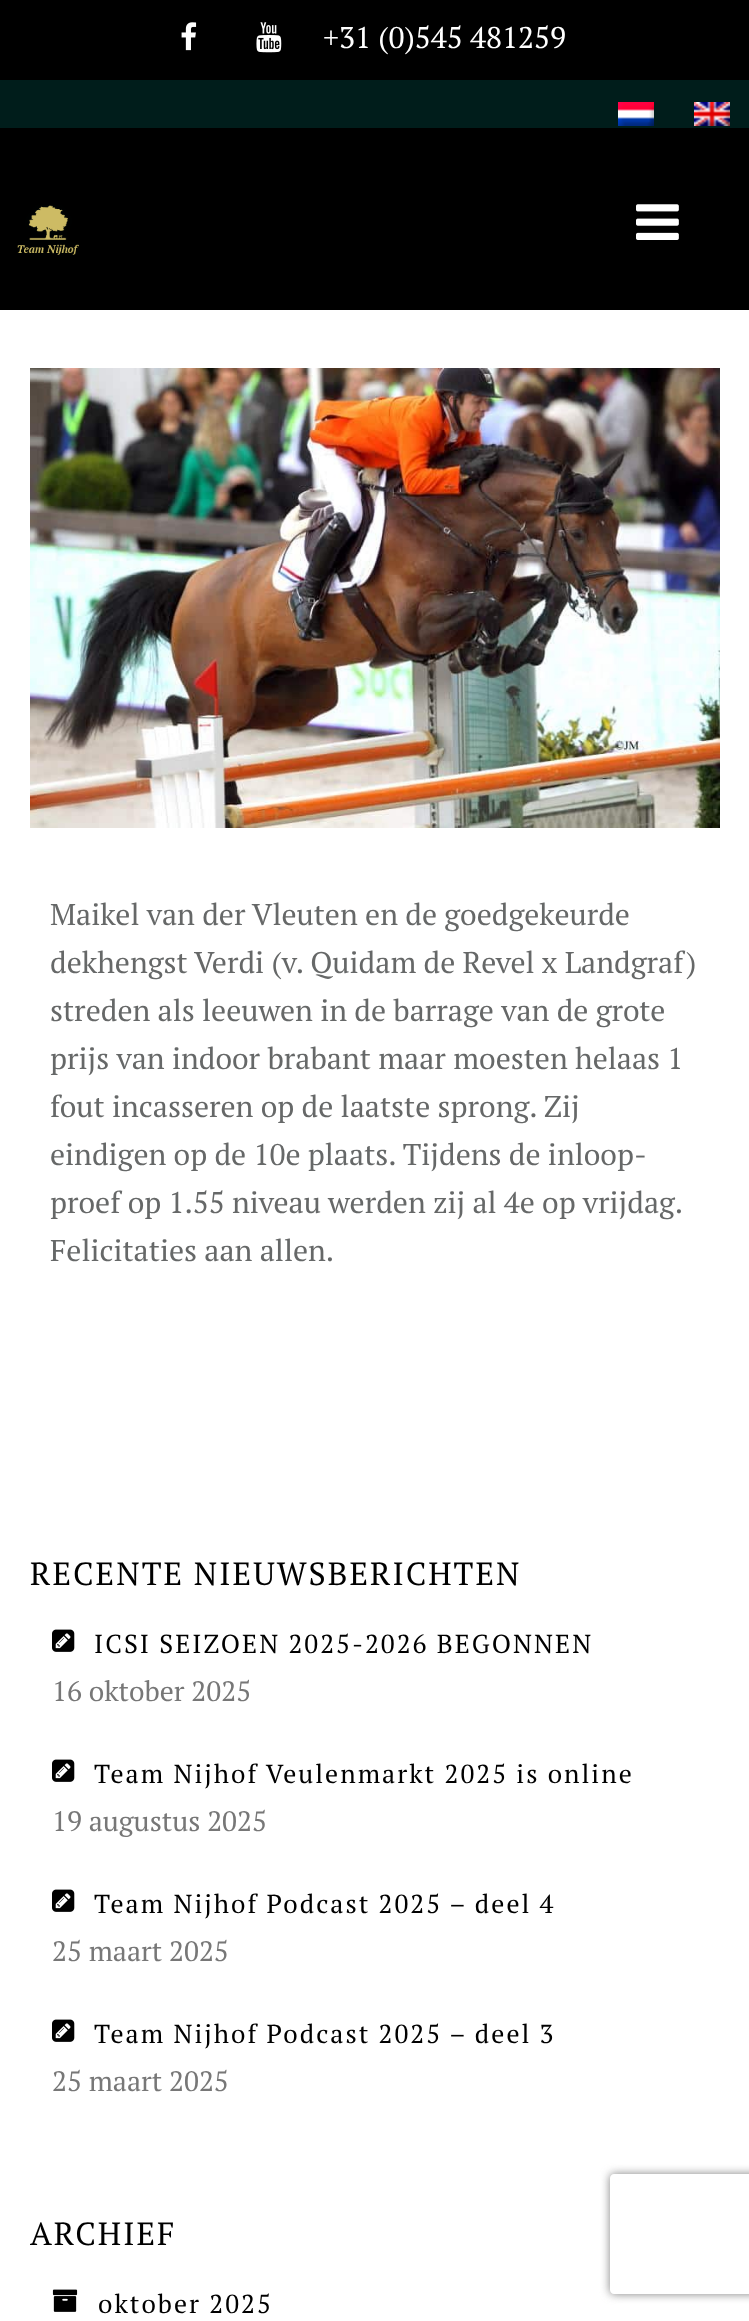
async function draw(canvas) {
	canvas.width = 749;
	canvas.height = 2321;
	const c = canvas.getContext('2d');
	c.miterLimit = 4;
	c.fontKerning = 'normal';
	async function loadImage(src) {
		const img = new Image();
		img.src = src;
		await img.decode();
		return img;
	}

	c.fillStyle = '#fff';
	c.fillRect(0, 0, 749, 2321);
	c.fillStyle = '#000';
	c.fillRect(0, 0, 749, 310);
	c.drawImage(await loadImage('img1.png'), 181, 22, 16, 29);
	c.drawImage(await loadImage('img2.png'), 256, 22, 26, 31);
	c.font = '30px PT Serif';
	c.fillStyle = '#fff';
	c.fillText('+31 (0)545 481259', 323, 48);
	c.fillStyle = '#001d1b';
	c.fillRect(0, 80, 749, 48);
	c.drawImage(await loadImage('img3.png'), 618, 102, 36, 24);
	c.drawImage(await loadImage('img4.png'), 694, 102, 36, 24);
	c.drawImage(await loadImage('img5.png'), 17, 205, 62, 50);
	c.drawImage(await loadImage('img6.png'), 636, 204, 43, 36);
	c.drawImage(await loadImage('img7.png'), 30, 368, 690, 460);
	c.fillStyle = '#666868';
	for (const [text, x, y] of [
		['Maikel van der Vleuten en de goedgekeurde', 50, 925],
		['dekhengst Verdi (v. Quidam de Revel x Landgraf)', 50, 973],
		['streden als leeuwen in de barrage van de grote', 50, 1021],
		['prijs van indoor brabant maar moesten helaas 1', 50, 1069],
		['fout incasseren op de laatste sprong. Zij', 50, 1117],
		['eindigen op de 10e plaats. Tijdens de inloop-', 50, 1165],
	]) {
		c.fillText(text, x, y);
	}
	c.wordSpacing = '-0.1px';
	c.fillText('proef op 1.55 niveau werden zij al 4e op vrijdag.', 50, 1213);
	c.wordSpacing = '0px';
	c.fillText('Felicitaties aan allen.', 50, 1261);
	c.letterSpacing = '2px';
	c.font = '32px PT Serif';
	c.fillStyle = '#000';
	c.fillText('RECENTE NIEUWSBERICHTEN', 30, 1585);
	c.drawImage(await loadImage('img8.png'), 52, 1629, 23, 23);
	c.font = '26px PT Serif';
	c.fillText('ICSI SEIZOEN 2025-2026 BEGONNEN', 94, 1653);
	c.letterSpacing = '0px';
	c.font = '28px PT Serif';
	c.fillStyle = '#777';
	c.fillText('16 oktober 2025', 52, 1701);
	c.drawImage(await loadImage('img8.png'), 52, 1759, 23, 23);
	c.letterSpacing = '2px';
	c.font = '26px PT Serif';
	c.fillStyle = '#000';
	c.fillText('Team Nijhof Veulenmarkt 2025 is online', 94, 1783);
	c.letterSpacing = '0px';
	c.font = '28px PT Serif';
	c.fillStyle = '#777';
	c.fillText('19 augustus 2025', 52, 1831);
	c.drawImage(await loadImage('img8.png'), 52, 1889, 23, 23);
	c.letterSpacing = '2px';
	c.font = '26px PT Serif';
	c.fillStyle = '#000';
	c.fillText('Team Nijhof Podcast 2025 – deel 4', 94, 1913);
	c.letterSpacing = '0px';
	c.font = '28px PT Serif';
	c.fillStyle = '#777';
	c.fillText('25 maart 2025', 52, 1961);
	c.drawImage(await loadImage('img8.png'), 52, 2019, 23, 23);
	c.letterSpacing = '2px';
	c.font = '26px PT Serif';
	c.fillStyle = '#000';
	c.fillText('Team Nijhof Podcast 2025 – deel 3', 94, 2043);
	c.letterSpacing = '0px';
	c.font = '28px PT Serif';
	c.fillStyle = '#777';
	c.fillText('25 maart 2025', 52, 2091);
	c.letterSpacing = '2px';
	c.font = '32px PT Serif';
	c.fillStyle = '#000';
	c.fillText('ARCHIEF', 30, 2245);
	c.drawImage(await loadImage('img9.png'), 52, 2289, 26, 23);
	c.font = '26px PT Serif';
	c.fillText('oktober 2025', 98, 2313);
	c.save();
	c.beginPath();
	c.moveTo(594, 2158);
	c.lineTo(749, 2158);
	c.lineTo(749, 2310);
	c.lineTo(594, 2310);
	c.closePath();
	c.moveTo(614, 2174);
	c.lineTo(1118, 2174);
	c.bezierCurveTo(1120, 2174, 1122, 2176, 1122, 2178);
	c.lineTo(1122, 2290);
	c.bezierCurveTo(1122, 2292, 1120, 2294, 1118, 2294);
	c.lineTo(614, 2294);
	c.bezierCurveTo(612, 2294, 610, 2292, 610, 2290);
	c.lineTo(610, 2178);
	c.bezierCurveTo(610, 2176, 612, 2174, 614, 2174);
	c.closePath();
	c.clip('evenodd');
	c.fillStyle = '#808080';
	c.filter = 'blur(5px)';
	c.beginPath();
	c.roundRect(610, 2174, 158, 120, 4);
	c.fill();
	c.filter = 'none';
	c.restore();
}

draw(document.querySelector('canvas'));
